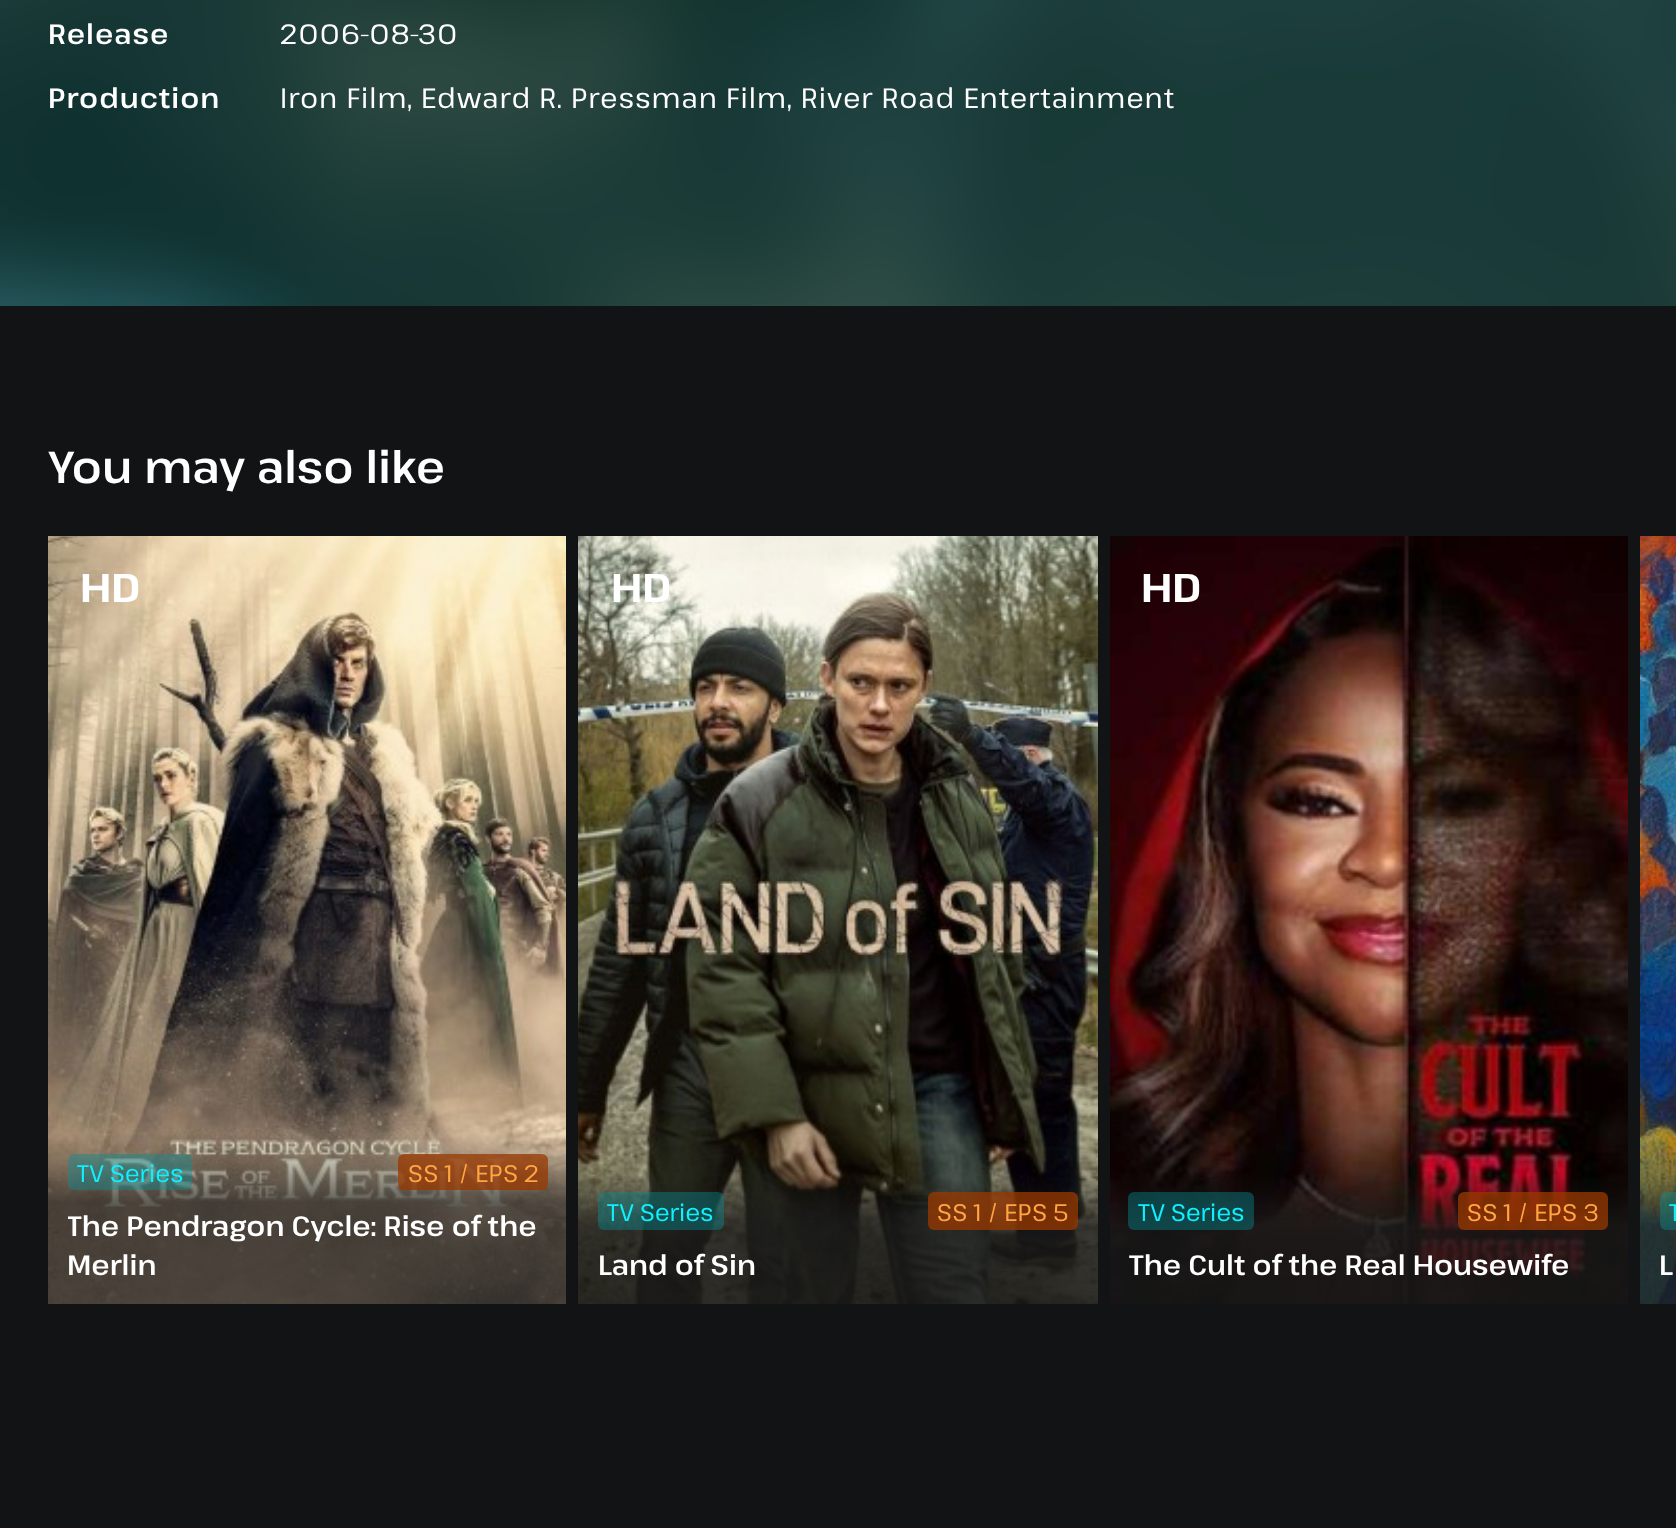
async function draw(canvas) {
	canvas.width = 1676;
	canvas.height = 1528;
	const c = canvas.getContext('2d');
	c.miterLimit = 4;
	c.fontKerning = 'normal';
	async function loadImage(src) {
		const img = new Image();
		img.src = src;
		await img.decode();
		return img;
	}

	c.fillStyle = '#121315';
	c.fillRect(0, 0, 1676, 1528);
	c.fillStyle = '#00383c';
	c.fillRect(0, 0, 1676, 306);
	c.drawImage(await loadImage('img1.png'), 0, 0, 1676, 306);
	c.letterSpacing = '1px';
	c.font = '600 28px Pathway Extreme';
	c.fillStyle = '#fff';
	c.fillText('Release', 48, 44);
	c.font = '28px Pathway Extreme';
	c.fillText('2006-08-30', 280, 44);
	c.font = '600 28px Pathway Extreme';
	c.fillText('Production', 48, 108);
	c.font = '28px Pathway Extreme';
	c.fillText('Iron Film, Edward R. Pressman Film', 280, 108);
	c.fillText(', River Road Entertainment', 787, 108);
	c.letterSpacing = '0px';
	c.wordSpacing = '0.5px';
	c.font = '600 44.75px Pathway Extreme';
	c.fillText('You may also like', 48, 483);
	c.drawImage(await loadImage('img2.png'), 48, 536, 518, 768);
	c.wordSpacing = '0px';
	c.font = 'bold 40px Pathway Extreme';
	c.fillText('HD', 80, 602);
	c.fillStyle = '#08909966';
	c.beginPath();
	c.roundRect(68, 1154, 124, 36, 6);
	c.fill();
	c.font = '24px Pathway Extreme';
	c.fillStyle = '#0feffd';
	c.fillText('TV Series', 77, 1182);
	c.fillStyle = '#993900c2';
	c.beginPath();
	c.roundRect(398, 1154, 150, 36, 6);
	c.fill();
	c.fillStyle = '#ffa544';
	c.fillText('SS 1 / EPS 2', 408, 1182);
	c.save();
	c.beginPath();
	c.rect(68, 1206, 480, 78);
	c.clip();
	c.font = '600 28px Pathway Extreme';
	c.fillStyle = '#fff';
	c.fillText('The Pendragon Cycle: Rise of the', 67, 1236);
	c.restore();
	c.font = '600 28px Pathway Extreme';
	c.fillStyle = '#fff';
	c.fillText('Merlin', 67, 1275);
	c.drawImage(await loadImage('img3.png'), 578, 536, 520, 768);
	c.font = 'bold 40px Pathway Extreme';
	c.fillText('HD', 611, 602);
	c.fillStyle = '#08909966';
	c.beginPath();
	c.roundRect(598, 1192, 126, 38, 6);
	c.fill();
	c.font = '24px Pathway Extreme';
	c.fillStyle = '#0feffd';
	c.fillText('TV Series', 607, 1221);
	c.fillStyle = '#993900c2';
	c.beginPath();
	c.roundRect(928, 1192, 150, 38, 6);
	c.fill();
	c.fillStyle = '#ffa544';
	c.fillText('SS 1 / EPS 5', 937, 1221);
	c.font = '600 28px Pathway Extreme';
	c.fillStyle = '#fff';
	c.fillText('Land of Sin', 598, 1275);
	c.drawImage(await loadImage('img4.png'), 1110, 536, 518, 768);
	c.font = 'bold 40px Pathway Extreme';
	c.fillText('HD', 1141, 602);
	c.fillStyle = '#08909966';
	c.beginPath();
	c.roundRect(1128, 1192, 126, 38, 6);
	c.fill();
	c.font = '24px Pathway Extreme';
	c.fillStyle = '#0feffd';
	c.fillText('TV Series', 1138, 1221);
	c.fillStyle = '#993900c2';
	c.beginPath();
	c.roundRect(1458, 1192, 150, 38, 6);
	c.fill();
	c.fillStyle = '#ffa544';
	c.fillText('SS 1 / EPS 3', 1467, 1221);
	c.font = '600 28px Pathway Extreme';
	c.fillStyle = '#fff';
	c.fillText('The Cult of the Real Housewife', 1129, 1275);
	c.drawImage(await loadImage('img5.png'), 1640, 536, 36, 768);
	c.fillStyle = '#08909966';
	c.beginPath();
	c.roundRect(1660, 1192, 16, 38, [6, 0, 0, 6]);
	c.fill();
	c.font = '24px Pathway Extreme';
	c.fillStyle = '#0feffd';
	c.fillText('T', 1669, 1221);
	c.font = '600 28px Pathway Extreme';
	c.fillStyle = '#fff';
	c.fillText('L', 1659, 1275);
}

draw(document.querySelector('canvas'));
